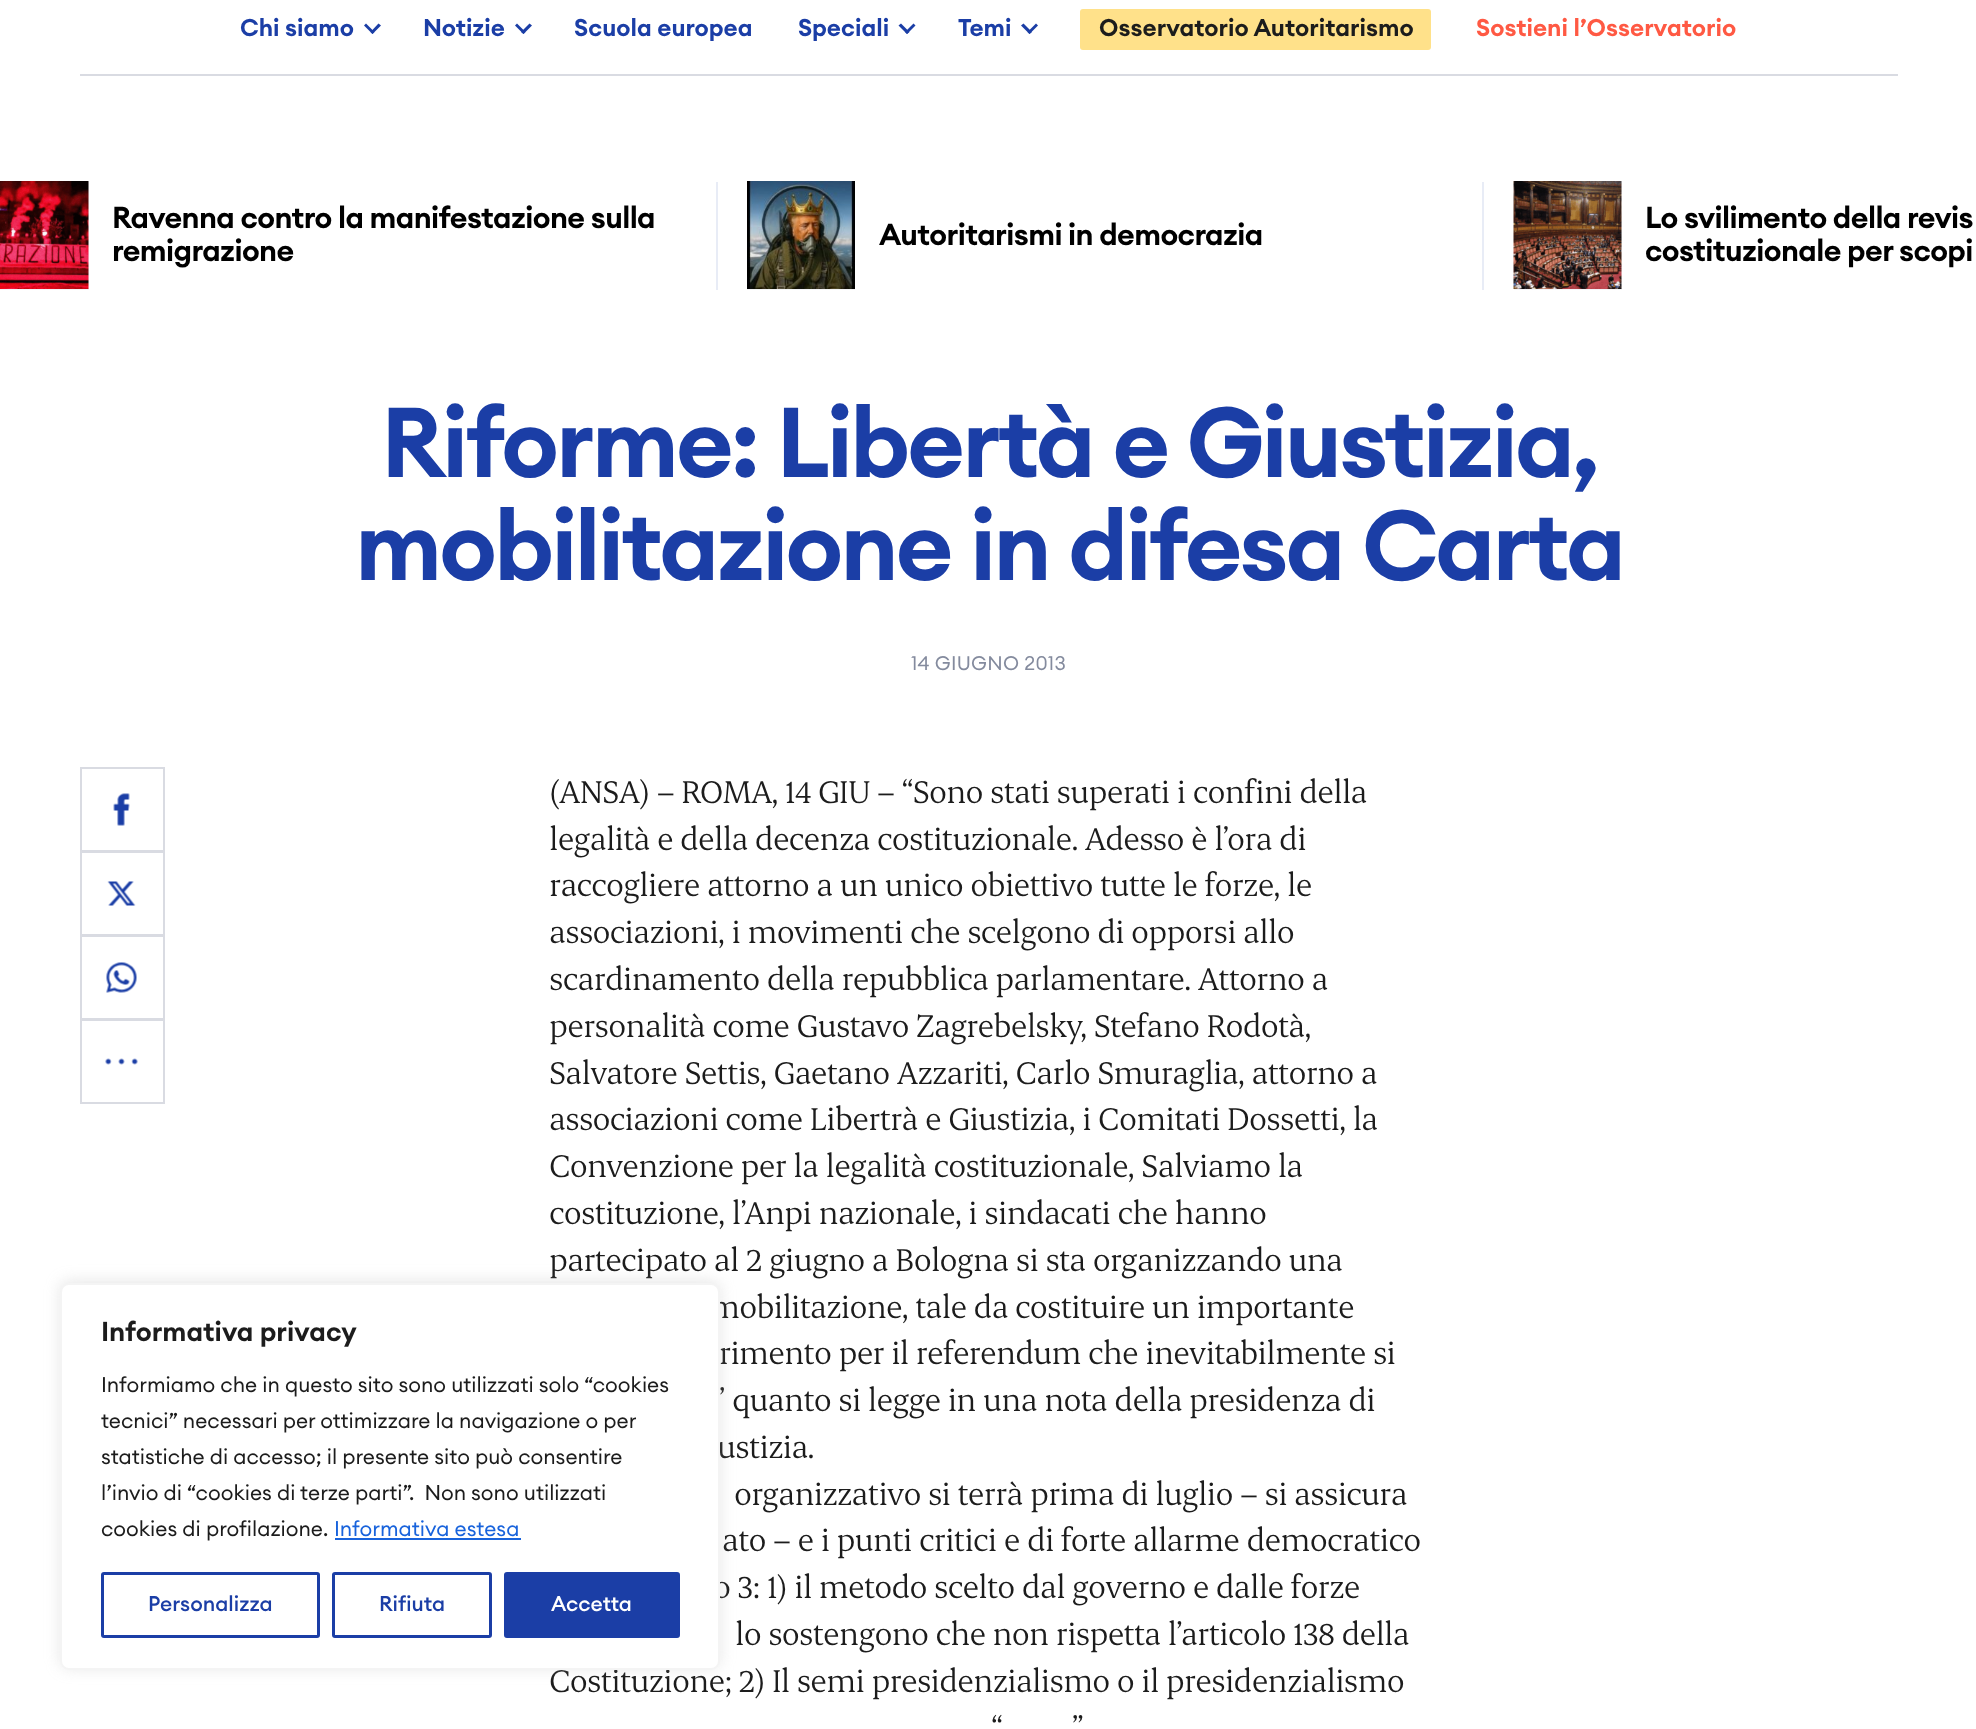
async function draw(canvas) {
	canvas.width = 1976;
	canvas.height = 1729;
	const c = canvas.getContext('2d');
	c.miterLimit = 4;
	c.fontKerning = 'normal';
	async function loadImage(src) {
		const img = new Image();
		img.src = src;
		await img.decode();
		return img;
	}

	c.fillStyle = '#fff';
	c.fillRect(0, 0, 1976, 1729);
	c.fillStyle = '#d9dbe2';
	c.fillRect(80, 74, 1818, 2);
	c.font = '600 24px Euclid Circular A';
	c.fillStyle = '#1b3ea6';
	c.fillText('Chi siamo', 240, 36);
	c.beginPath();
	c.moveTo(370.5, 32);
	c.lineTo(378.5, 23.5);
	c.lineTo(381, 25.5);
	c.lineTo(372.5, 34);
	c.closePath();
	c.fill();
	c.beginPath();
	c.moveTo(364, 25.5);
	c.lineTo(366, 23.5);
	c.lineTo(374.5, 32);
	c.lineTo(372.5, 34);
	c.closePath();
	c.fill();
	c.fillText('Notizie', 423, 36);
	c.beginPath();
	c.moveTo(521, 32);
	c.lineTo(529.5, 23.5);
	c.lineTo(532, 25.5);
	c.lineTo(523.5, 34);
	c.closePath();
	c.fill();
	c.beginPath();
	c.moveTo(515, 25.5);
	c.lineTo(517, 23.5);
	c.lineTo(525.5, 32);
	c.lineTo(523.5, 34);
	c.closePath();
	c.fill();
	c.fillText('Scuola europea', 574, 36);
	c.fillText('Speciali', 798, 36);
	c.beginPath();
	c.moveTo(905, 32);
	c.lineTo(913.5, 23.5);
	c.lineTo(915.5, 25.5);
	c.lineTo(907, 34);
	c.closePath();
	c.fill();
	c.beginPath();
	c.moveTo(898.5, 25.5);
	c.lineTo(901, 23.5);
	c.lineTo(909.5, 32);
	c.lineTo(907, 34);
	c.closePath();
	c.fill();
	c.fillText('Temi', 958, 36);
	c.beginPath();
	c.moveTo(1027.5, 32);
	c.lineTo(1036, 23.5);
	c.lineTo(1038, 25.5);
	c.lineTo(1029.5, 34);
	c.closePath();
	c.fill();
	c.beginPath();
	c.moveTo(1021, 25.5);
	c.lineTo(1023.5, 23.5);
	c.lineTo(1032, 32);
	c.lineTo(1029.5, 34);
	c.closePath();
	c.fill();
	c.fillStyle = '#ffe18a';
	c.beginPath();
	c.roundRect(1080, 9, 351, 41, 3);
	c.fill();
	c.fillStyle = '#1c1c1c';
	c.fillText('Osservatorio Autoritarismo', 1099, 36);
	c.fillStyle = '#ff5943';
	c.fillText('Sostieni l’Osservatorio', 1476, 36);
	c.fillStyle = '#e8ecf6';
	c.fillRect(716, 182, 2, 108);
	c.fillStyle = '#f4f4f6';
	c.fillRect(0, 182, 89, 108);
	c.drawImage(await loadImage('img1.png'), 0, 181, 89, 108);
	c.letterSpacing = '-0.6px';
	c.font = '600 30px Euclid Circular A';
	c.fillStyle = '#000';
	c.fillText('Ravenna contro la manifestazione sulla', 112, 228);
	c.fillText('remigrazione', 112, 261);
	c.fillStyle = '#e8ecf6';
	c.fillRect(1482, 182, 2, 108);
	c.fillStyle = '#f4f4f6';
	c.fillRect(747, 289, 108, 1);
	c.drawImage(await loadImage('img2.png'), 747, 181, 108, 108);
	c.fillStyle = '#000';
	c.fillText('Autoritarismi in democrazia', 879, 245);
	c.fillStyle = '#f4f4f6';
	c.fillRect(1514, 182, 108, 108);
	c.drawImage(await loadImage('img3.png'), 1513, 181, 109, 108);
	c.fillStyle = '#000';
	c.fillText('Lo svilimento della revis', 1645, 228);
	c.fillText('costituzionale per scopi', 1645, 261);
	c.letterSpacing = '-2.9px';
	c.font = '600 97.5px Euclid Circular A';
	c.fillStyle = '#1b3ea6';
	c.fillText('Riforme: Libertà e Giustizia,', 381, 477);
	c.fillText('mobilitazione in difesa Carta', 355, 580);
	c.letterSpacing = '0.25px';
	c.font = '19.5px Euclid Circular A';
	c.fillStyle = '#848b9e';
	c.fillText('14 GIUGNO 2013', 911, 670);
	c.strokeStyle = '#d9dbe2';
	c.lineWidth = 2;
	c.strokeRect(81, 768, 83, 83);
	c.drawImage(await loadImage('img4.png'), 113, 793, 17, 33);
	c.strokeRect(81, 852, 83, 83);
	c.drawImage(await loadImage('img5.png'), 107, 881, 29, 25);
	c.strokeRect(81, 936, 83, 83);
	c.drawImage(await loadImage('img6.png'), 106, 962, 31, 31);
	c.strokeRect(81, 1020, 83, 83);
	c.drawImage(await loadImage('img7.png'), 105, 1058, 33, 7);
	c.letterSpacing = '-0.72px';
	c.font = '36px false';
	c.fillStyle = '#1c1c1c';
	for (const [text, x, y] of [
		['(ANSA) – ROMA, 14 GIU – “Sono stati superati i confini della', 549, 803],
		['legalità e della decenza costituzionale. Adesso è l’ora di', 549, 850],
		['raccogliere attorno a un unico obiettivo tutte le forze, le', 549, 896],
		['associazioni, i movimenti che scelgono di opporsi allo', 549, 943],
		['scardinamento della repubblica parlamentare. Attorno a', 549, 990],
		['personalità come Gustavo Zagrebelsky, Stefano Rodotà,', 549, 1037],
		['Salvatore Settis, Gaetano Azzariti, Carlo Smuraglia, attorno a', 549, 1084],
		['associazioni come Libertrà e Giustizia, i Comitati Dossetti, la', 549, 1130],
		['Convenzione per la legalità costituzionale, Salviamo la', 549, 1177],
		['costituzione, l’Anpi nazionale, i sindacati che hanno', 549, 1224],
		['partecipato al 2 giugno a Bologna si sta organizzando una', 549, 1271],
		['mobilitazione, tale da costituire un importante', 710, 1318],
		['rimento per il referendum che inevitabilmente si', 719, 1364],
		['’ quanto si legge in una nota della presidenza di', 719, 1411],
		['ustizia.', 717, 1458],
		['organizzativo si terrà prima di luglio – si assicura', 734, 1505],
		['ato – e i punti critici e di forte allarme democratico', 722, 1551],
		['o 3: 1) il metodo scelto dal governo e dalle forze', 713, 1598],
		['lo sostengono che non rispetta l’articolo 138 della', 735, 1645],
		['Costituzione; 2) Il semi presidenzialismo o il presidenzialismo', 549, 1692],
		['“', 991, 1739],
		['”', 1072, 1739],
	]) {
		c.fillText(text, x, y);
	}
	c.fillStyle = '#acabab4d';
	c.filter = 'blur(7.5px)';
	c.beginPath();
	c.roundRect(60, 1281, 660, 387, 9);
	c.fill();
	c.filter = 'none';
	c.fillStyle = '#fff';
	c.beginPath();
	c.roundRect(61, 1284, 658, 385, 8);
	c.fill();
	c.strokeStyle = '#f4f4f4';
	c.stroke();
	c.letterSpacing = '0px';
	c.font = '600 27px Euclid Circular A';
	c.fillStyle = '#1c1c1c';
	c.fillText('Informativa privacy', 101, 1341);
	c.font = '21px Euclid Circular A';
	for (const [text, x, y] of [
		['Informiamo che in questo sito sono utilizzati solo “cookies', 101, 1392],
		['tecnici” necessari per ottimizzare la navigazione o per', 101, 1428],
		['statistiche di accesso; il presente sito può consentire', 101, 1464],
		['l’invio di “cookies di terze parti”.  Non sono utilizzati', 101, 1500],
		['cookies di profilazione.', 101, 1536],
	]) {
		c.fillText(text, x, y);
	}
	c.fillStyle = '#1863dc';
	c.fillText('Informativa estesa', 334, 1536);
	c.fillRect(335, 1538, 186, 2);
	c.beginPath();
	c.roundRect(102.5, 1573.5, 216, 63, 1.5);
	c.strokeStyle = '#1b3ea6';
	c.lineWidth = 3;
	c.stroke();
	c.font = '500 21px Euclid Circular A';
	c.fillStyle = '#1b3ea6';
	c.fillText('Personalizza', 148, 1611);
	c.beginPath();
	c.roundRect(333.5, 1573.5, 157, 63, 1.5);
	c.stroke();
	c.fillText('Rifiuta', 379, 1611);
	c.beginPath();
	c.roundRect(505.5, 1573.5, 173, 63, 1.5);
	c.fill();
	c.stroke();
	c.fillStyle = '#fff';
	c.fillText('Accetta', 551, 1611);
}

draw(document.querySelector('canvas'));
